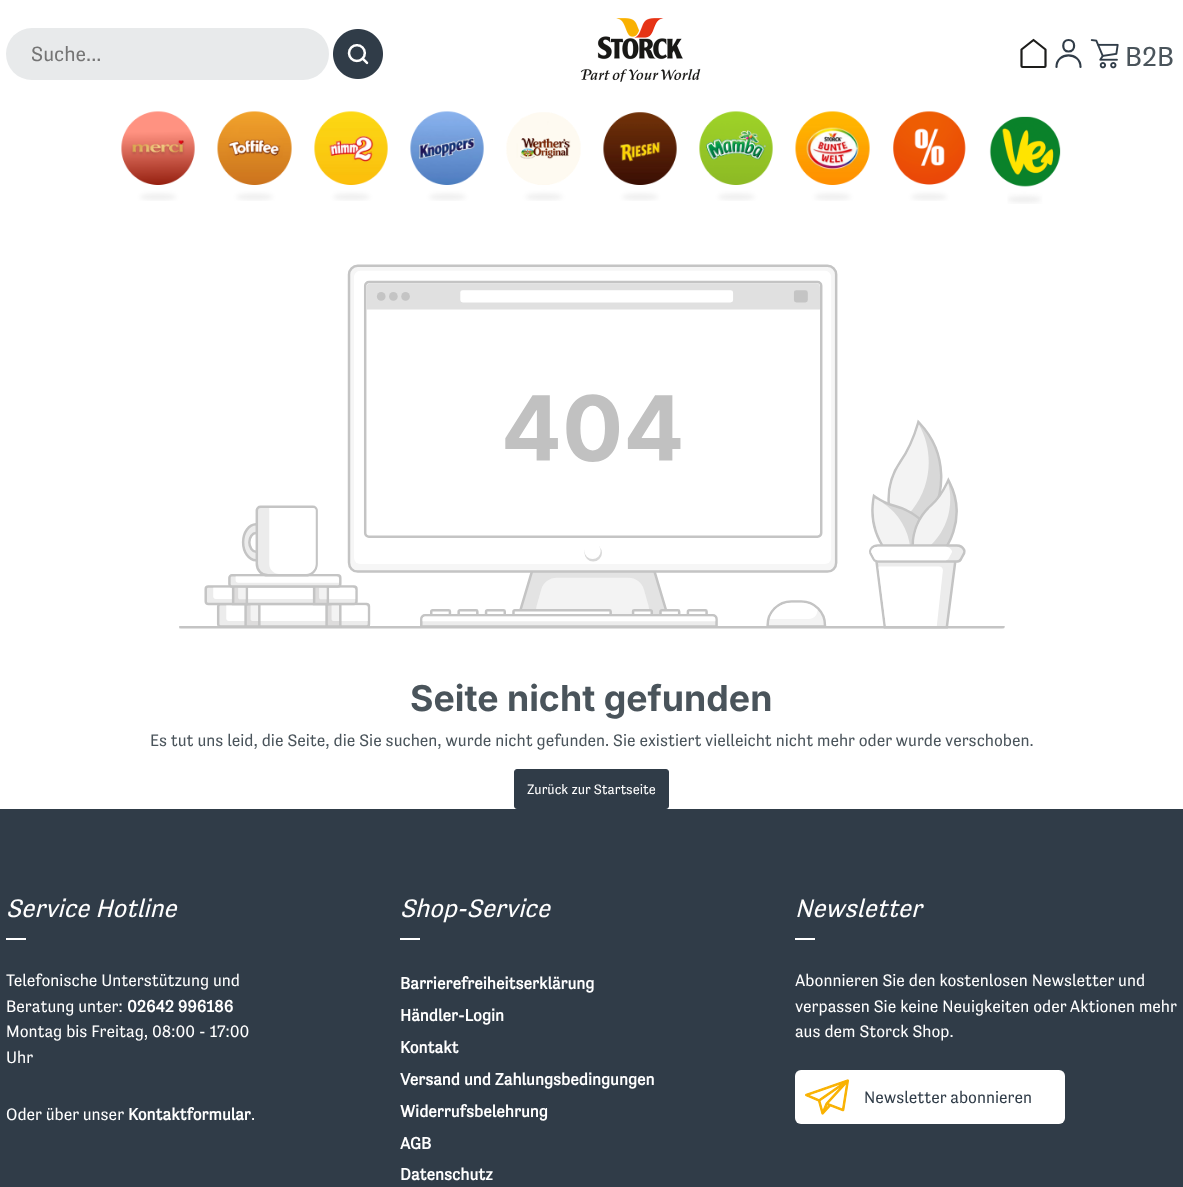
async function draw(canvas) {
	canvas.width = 1183;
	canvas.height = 1187;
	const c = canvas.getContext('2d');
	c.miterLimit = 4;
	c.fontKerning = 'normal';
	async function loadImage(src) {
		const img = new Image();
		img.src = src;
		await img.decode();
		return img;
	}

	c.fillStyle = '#fff';
	c.fillRect(0, 0, 1183, 1187);
	c.fillStyle = '#e8eaeb';
	c.beginPath();
	c.roundRect(6, 28, 323, 52, 26);
	c.fill();
	c.font = '21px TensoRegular';
	c.fillStyle = '#757575';
	c.fillText('Suche...', 31, 61);
	c.drawImage(await loadImage('img1.png'), 333, 29, 50, 50);
	c.drawImage(await loadImage('img2.png'), 580, 18, 121, 64);
	c.beginPath();
	c.moveTo(1045.5, 49.5);
	c.lineTo(1045.5, 66);
	c.bezierCurveTo(1045.5, 66.5, 1045, 67, 1044.5, 67);
	c.lineTo(1022.5, 67);
	c.bezierCurveTo(1022, 67, 1021.5, 66.5, 1021.5, 66);
	c.lineTo(1021.5, 49.5);
	c.lineTo(1033.5, 40);
	c.closePath();
	c.strokeStyle = '#1d1d1b';
	c.lineWidth = 2.2;
	c.lineCap = 'round';
	c.lineJoin = 'round';
	c.stroke();
	c.beginPath();
	c.moveTo(1080.5, 67);
	c.bezierCurveTo(1080.5, 51.5, 1056.5, 51.5, 1056.5, 67);
	c.strokeStyle = '#303c48';
	c.lineJoin = 'miter';
	c.stroke();
	c.beginPath();
	c.moveTo(1068.5, 40);
	c.bezierCurveTo(1076, 40, 1076, 51.5, 1068.5, 51.5);
	c.bezierCurveTo(1061.5, 51.5, 1061.5, 40, 1068.5, 40);
	c.closePath();
	c.lineCap = 'butt';
	c.stroke();
	c.drawImage(await loadImage('img3.png'), 1090, 39, 29, 30);
	c.font = '28px TensoRegular';
	c.fillStyle = '#4a545b';
	c.fillText('B2B', 1125, 66);
	c.drawImage(await loadImage('img4.png'), 121, 111, 74, 90);
	c.drawImage(await loadImage('img5.png'), 217, 111, 75, 90);
	c.drawImage(await loadImage('img6.png'), 314, 111, 74, 90);
	c.drawImage(await loadImage('img7.png'), 410, 111, 74, 90);
	c.drawImage(await loadImage('img8.png'), 506, 112, 75, 89);
	c.drawImage(await loadImage('img9.png'), 603, 112, 74, 89);
	c.drawImage(await loadImage('img10.png'), 699, 111, 74, 90);
	c.drawImage(await loadImage('img11.png'), 795, 111, 75, 90);
	c.drawImage(await loadImage('img12.png'), 893, 111, 73, 90);
	c.drawImage(await loadImage('img13.png'), 989, 116, 72, 88);
	c.drawImage(await loadImage('img14.png'), 179, 264, 826, 365);
	c.font = 'bold 35.75px Inter';
	c.fillText('Seite nicht gefunden', 410, 711);
	c.font = '17px TensoRegular';
	c.fillText('Es tut uns leid, die Seite, die Sie suchen, wurde nicht gefunden. Sie existiert vielleicht nicht mehr oder wurde verschoben.', 150, 746);
	c.fillStyle = '#303c48';
	c.beginPath();
	c.roundRect(514.5, 769.5, 154, 39, 2.5);
	c.fill();
	c.lineWidth = 1;
	c.stroke();
	c.font = '14px TensoRegular';
	c.fillStyle = '#fff';
	c.fillText('Zurück zur Startseite', 527, 794);
	c.fillStyle = '#303c48';
	c.fillRect(0, 809, 1183, 378);
	c.font = 'italic 26px TensoRegular';
	c.fillStyle = '#fff';
	c.fillText('Service Hotline', 6, 917);
	c.fillRect(6, 938, 20, 2);
	c.font = '17px TensoRegular';
	c.fillText('Telefonische Unterstützung und', 6, 986);
	c.fillText('Beratung unter:', 6, 1012);
	c.font = 'bold 17px TensoRegular';
	c.fillText('02642 996186', 127, 1012);
	c.font = '17px TensoRegular';
	for (const [text, x, y] of [
		['Montag bis Freitag, 08:00 - 17:00', 6, 1037],
		['Uhr', 6, 1063],
		['Oder über unser', 6, 1120],
	]) {
		c.fillText(text, x, y);
	}
	c.font = 'bold 17px TensoRegular';
	c.fillText('Kontaktformular', 128, 1120);
	c.font = '17px TensoRegular';
	c.fillText('.', 251, 1120);
	c.font = 'italic 26px TensoRegular';
	c.fillText('Shop-Service', 400, 917);
	c.fillRect(400, 938, 20, 2);
	c.font = 'bold 17px TensoRegular';
	for (const [text, x, y] of [
		['Barrierefreiheitserklärung', 400, 989],
		['Händler-Login', 400, 1021],
		['Kontakt', 400, 1053],
		['Versand und Zahlungsbedingungen', 400, 1085],
		['Widerrufsbelehrung', 400, 1117],
		['AGB', 400, 1149],
		['Datenschutz', 400, 1180],
	]) {
		c.fillText(text, x, y);
	}
	c.font = 'italic 26px TensoRegular';
	c.fillText('Newsletter', 795, 917);
	c.fillRect(795, 938, 20, 2);
	c.font = '17px TensoRegular';
	for (const [text, x, y] of [
		['Abonnieren Sie den kostenlosen Newsletter und', 795, 986],
		['verpassen Sie keine Neuigkeiten oder Aktionen mehr', 795, 1012],
		['aus dem Storck Shop.', 795, 1037],
	]) {
		c.fillText(text, x, y);
	}
	c.beginPath();
	c.roundRect(795, 1070, 270, 54, 6);
	c.fill();
	c.drawImage(await loadImage('img15.png'), 805, 1079, 44, 36);
	c.fillStyle = '#303c48';
	c.fillText('Newsletter abonnieren', 864, 1103);
}

draw(document.querySelector('canvas'));
